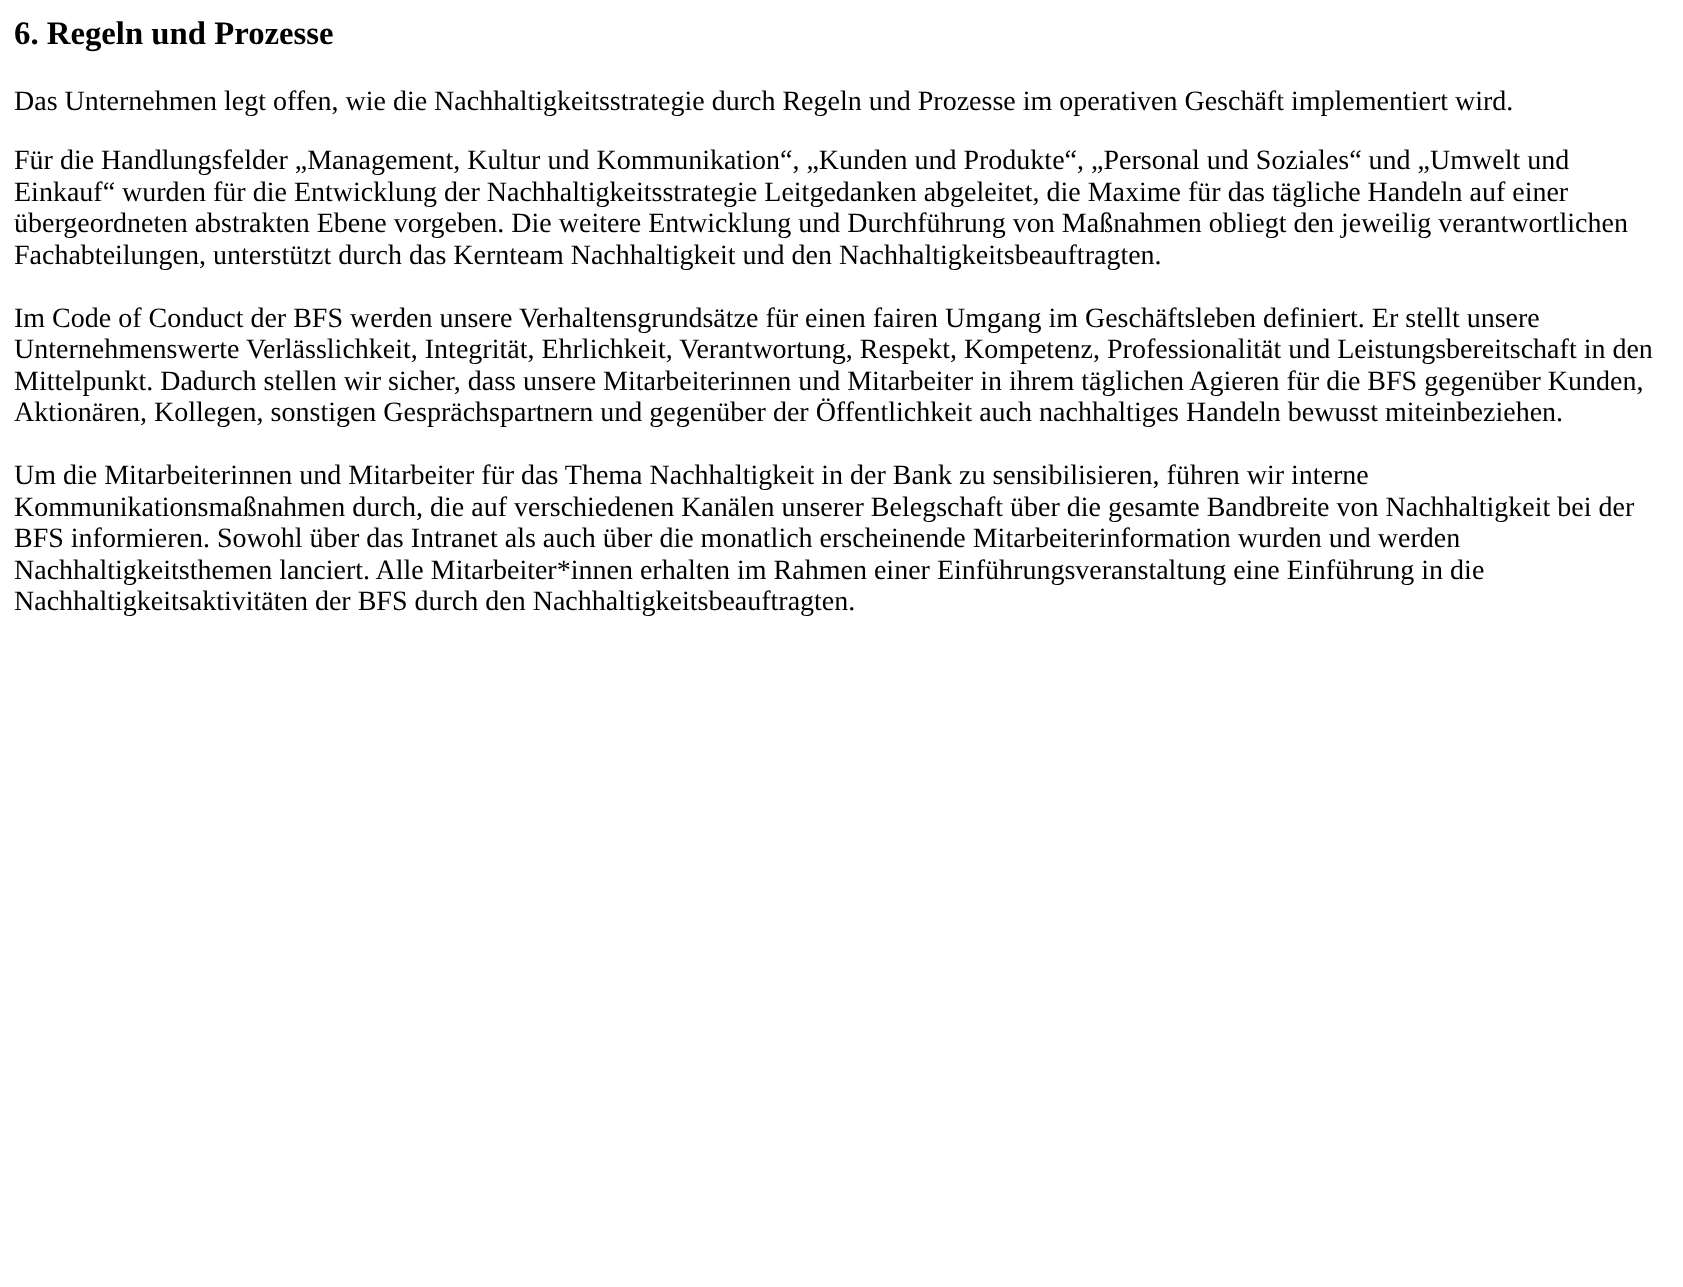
async function draw(canvas) {
	canvas.width = 1683;
	canvas.height = 1287;
	const c = canvas.getContext('2d');
	c.miterLimit = 4;
	c.fontKerning = 'normal';

	c.fillStyle = '#fff';
	c.fillRect(0, 0, 1683, 1287);
	c.font = 'bold 32.75px Liberation Serif';
	c.fillStyle = '#000';
	c.fillText('6. Regeln und Prozesse', 14, 44);
	c.font = '28px Liberation Serif';
	for (const [text, x, y] of [
		['Das Unternehmen legt offen, wie die Nachhaltigkeitsstrategie durch Regeln und Prozesse im operativen Geschäft implementiert wird.', 14, 110],
		['Für die Handlungsfelder „Management, Kultur und Kommunikation“, „Kunden und Produkte“, „Personal und Soziales“ und „Umwelt und', 14, 169],
		['Einkauf“ wurden für die Entwicklung der Nachhaltigkeitsstrategie Leitgedanken abgeleitet, die Maxime für das tägliche Handeln auf einer', 14, 201],
		['übergeordneten abstrakten Ebene vorgeben. Die weitere Entwicklung und Durchführung von Maßnahmen obliegt den jeweilig verantwortlichen', 14, 232],
		['Fachabteilungen, unterstützt durch das Kernteam Nachhaltigkeit und den Nachhaltigkeitsbeauftragten.', 14, 264],
		['Im Code of Conduct der BFS werden unsere Verhaltensgrundsätze für einen fairen Umgang im Geschäftsleben definiert. Er stellt unsere', 14, 327],
		['Unternehmenswerte Verlässlichkeit, Integrität, Ehrlichkeit, Verantwortung, Respekt, Kompetenz, Professionalität und Leistungsbereitschaft in den', 14, 358],
		['Mittelpunkt. Dadurch stellen wir sicher, dass unsere Mitarbeiterinnen und Mitarbeiter in ihrem täglichen Agieren für die BFS gegenüber Kunden,', 14, 390],
		['Aktionären, Kollegen, sonstigen Gesprächspartnern und gegenüber der Öffentlichkeit auch nachhaltiges Handeln bewusst miteinbeziehen.', 14, 421],
		['Um die Mitarbeiterinnen und Mitarbeiter für das Thema Nachhaltigkeit in der Bank zu sensibilisieren, führen wir interne', 14, 484],
		['Kommunikationsmaßnahmen durch, die auf verschiedenen Kanälen unserer Belegschaft über die gesamte Bandbreite von Nachhaltigkeit bei der', 14, 516],
		['BFS informieren. Sowohl über das Intranet als auch über die monatlich erscheinende Mitarbeiterinformation wurden und werden', 14, 547],
		['Nachhaltigkeitsthemen lanciert. Alle Mitarbeiter*innen erhalten im Rahmen einer Einführungsveranstaltung eine Einführung in die', 14, 579],
		['Nachhaltigkeitsaktivitäten der BFS durch den Nachhaltigkeitsbeauftragten.', 14, 610],
	]) {
		c.fillText(text, x, y);
	}
}

draw(document.querySelector('canvas'));
